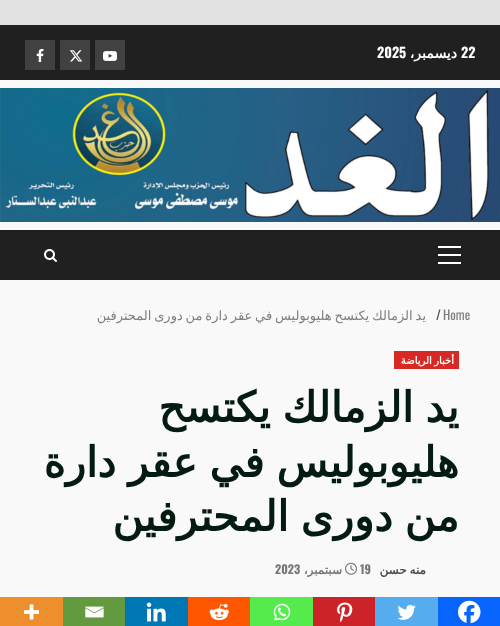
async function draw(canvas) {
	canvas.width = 500;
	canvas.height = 626;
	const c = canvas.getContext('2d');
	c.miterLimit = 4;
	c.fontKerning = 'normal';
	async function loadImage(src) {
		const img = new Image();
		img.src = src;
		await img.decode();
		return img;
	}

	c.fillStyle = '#e2e2e2';
	c.fillRect(0, 0, 500, 626);
	c.fillStyle = '#f9f9f9';
	c.fillRect(0, 80, 500, 517);
	c.fillStyle = '#202020';
	c.fillRect(0, 25, 500, 55);
	c.font = 'bold 14px Oswald';
	c.fillStyle = '#fff';
	c.fillText('22', 461, 58);
	c.direction = 'rtl';
	c.font = 'bold 14px DejaVu Sans';
	c.fillText('ديسمبر،', 457, 58);
	c.direction = 'ltr';
	c.font = 'bold 14px Oswald';
	c.fillText('2025', 377, 58);
	c.fillStyle = '#414141';
	c.fillRect(95, 40, 30, 30);
	c.drawImage(await loadImage('img1.png'), 103, 51, 14, 10);
	c.fillRect(60, 40, 30, 30);
	c.drawImage(await loadImage('img2.png'), 69, 50, 14, 12);
	c.fillRect(25, 40, 30, 30);
	c.drawImage(await loadImage('img3.png'), 36, 49, 8, 13);
	c.drawImage(await loadImage('img4.png'), 0, 88, 500, 134);
	for (const [x, y, w, h, color] of [
		[0, 230, 500, 50, '#202020'],
		[438, 254, 23, 2, '#fff'],
		[438, 246, 23, 2, '#fff'],
		[438, 262, 23, 2, '#fff'],
	]) {
		c.fillStyle = color;
		c.fillRect(x, y, w, h);
	}
	c.drawImage(await loadImage('img5.png'), 44, 249, 13, 13);
	c.font = '13px Oswald';
	c.fillStyle = '#7f7f7f';
	c.fillText('Home', 443, 320);
	c.fillStyle = '#4a4a4a';
	c.fillText('/', 436, 320);
	c.wordSpacing = '-1.25px';
	c.direction = 'rtl';
	c.font = '13px DejaVu Sans';
	c.fillStyle = '#7f7f7f';
	c.fillText('يد الزمالك يكتسح هليوبوليس في عقر دارة من دورى المحترفين', 426, 320);
	c.fillStyle = '#d72924';
	c.fillRect(394, 351, 65, 18);
	c.letterSpacing = '0.1px';
	c.wordSpacing = '-1px';
	c.font = 'bold 10px DejaVu Sans';
	c.fillStyle = '#fff';
	c.fillText('أخبار الرياضة', 454, 364);
	c.letterSpacing = '0px';
	c.wordSpacing = '-1.5px';
	c.font = 'bold 42px DejaVu Sans';
	c.fillStyle = '#031b11';
	for (const [text, x, y] of [
		['يد الزمالك يكتسح', 459, 422],
		['هليوبوليس في عقر دارة', 459, 477],
		['من دورى المحترفين', 459, 531],
	]) {
		c.fillText(text, x, y);
	}
	c.wordSpacing = '-1px';
	c.font = 'bold 12px DejaVu Sans';
	c.fillStyle = '#4a4a4a';
	c.fillText('منه حسن', 426, 574);
	c.wordSpacing = '0px';
	c.direction = 'ltr';
	c.font = 'bold 12px Oswald';
	c.fillStyle = '#767676';
	c.fillText('19', 360, 574);
	c.drawImage(await loadImage('img6.png'), 345, 562, 12, 13);
	c.direction = 'rtl';
	c.font = 'bold 12px DejaVu Sans';
	c.fillText('سبتمبر،', 342, 574);
	c.direction = 'ltr';
	c.font = 'bold 12px Oswald';
	c.fillText('2023', 275, 574);
	c.fillStyle = '#0765fe';
	c.fillRect(438, 597, 62, 29);
	c.drawImage(await loadImage('img7.png'), 458, 600, 23, 24);
	c.fillStyle = '#55acee';
	c.fillRect(375, 597, 63, 29);
	c.drawImage(await loadImage('img8.png'), 397, 604, 19, 16);
	c.fillStyle = '#cc2329';
	c.fillRect(313, 597, 62, 29);
	c.drawImage(await loadImage('img9.png'), 337, 602, 16, 21);
	c.fillStyle = '#55eb4c';
	c.fillRect(250, 597, 63, 29);
	c.drawImage(await loadImage('img10.png'), 273, 603, 18, 18);
	c.fillStyle = '#ff5700';
	c.fillRect(188, 597, 62, 29);
	c.drawImage(await loadImage('img11.png'), 209, 603, 20, 18);
	c.fillStyle = '#0077b5';
	c.fillRect(125, 597, 63, 29);
	c.drawImage(await loadImage('img12.png'), 146, 602, 20, 20);
	c.fillStyle = '#649a3f';
	c.fillRect(63, 597, 62, 29);
	c.drawImage(await loadImage('img13.png'), 85, 606, 19, 12);
	c.fillStyle = '#ee8e2d';
	c.fillRect(0, 597, 63, 29);
	c.drawImage(await loadImage('img14.png'), 24, 604, 16, 16);
}

draw(document.querySelector('canvas'));
